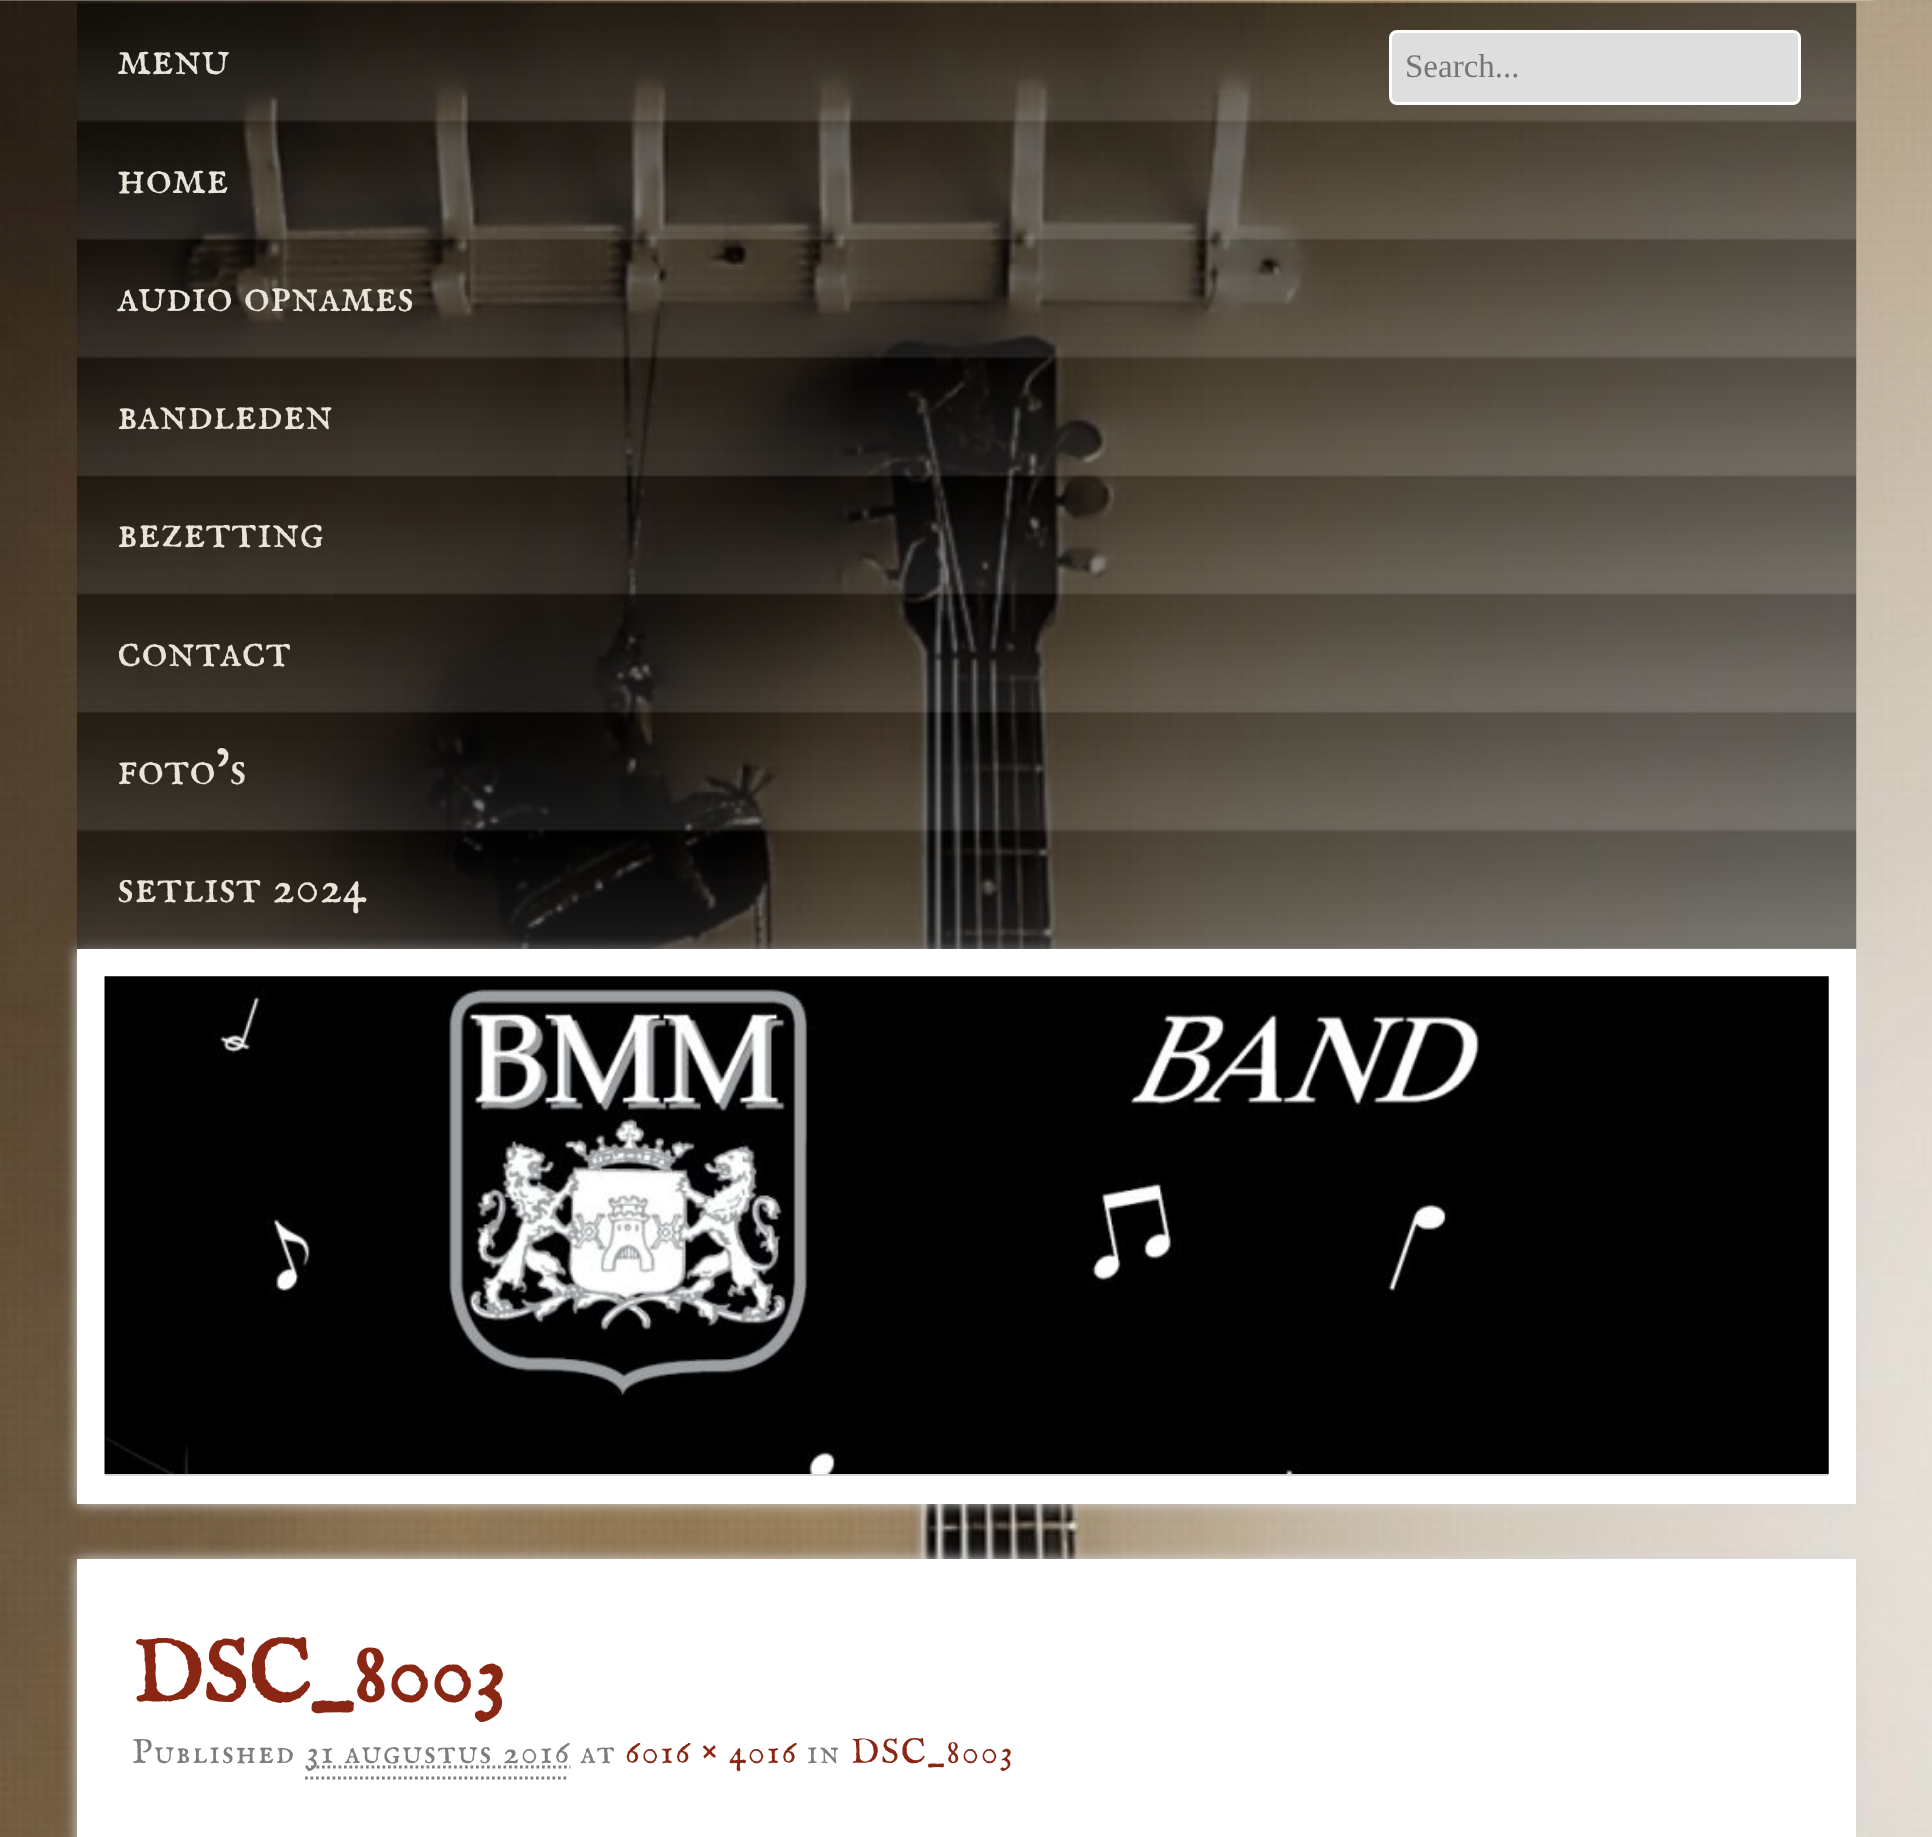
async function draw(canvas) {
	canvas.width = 1932;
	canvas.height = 1837;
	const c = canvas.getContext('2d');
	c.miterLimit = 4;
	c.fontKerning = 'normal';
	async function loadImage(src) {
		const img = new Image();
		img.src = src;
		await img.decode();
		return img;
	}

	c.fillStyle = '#fff';
	c.fillRect(0, 0, 1932, 1837);
	c.drawImage(await loadImage('img1.png'), 0, 0, 1932, 1837);
	c.fillStyle = '#d8d8d8';
	c.filter = 'blur(7px)';
	c.beginPath();
	c.rect(77, 949, 1779, 555);
	c.fill();
	c.filter = 'none';
	c.drawImage(await loadImage('img2.png'), 77, 2, 1780, 947);
	c.font = '49.5px IM FELL English SC';
	c.fillStyle = '#e8e4d9';
	for (const [text, x, y] of [
		['menu', 117, 74],
		['home', 117, 193],
		['audio opnames', 117, 311],
		['bandleden', 117, 429],
		['bezetting', 117, 547],
		['contact', 117, 666],
		['foto’s', 117, 784],
		['setlist 2024', 117, 902],
	]) {
		c.fillText(text, x, y);
	}
	c.fillStyle = '#dedede';
	c.beginPath();
	c.roundRect(1390.5, 31.5, 409, 72, 6.5);
	c.fill();
	c.strokeStyle = '#fff';
	c.lineWidth = 3;
	c.stroke();
	c.font = '33px Liberation Serif';
	c.fillStyle = '#757575';
	c.fillText('Search...', 1405, 77);
	c.lineWidth = 28;
	c.strokeRect(91, 963, 1751, 527);
	c.drawImage(await loadImage('img3.png'), 104, 976, 1725, 498);
	c.fillStyle = '#d8d8d8';
	c.filter = 'blur(7px)';
	c.beginPath();
	c.rect(77, 1559, 1779, 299);
	c.fill();
	c.filter = 'none';
	c.fillStyle = '#fff';
	c.fillRect(77, 1559, 1779, 278);
	c.font = 'bold 88px IM FELL English SC';
	c.fillStyle = '#8a2714';
	c.fillText('DSC_8003', 132, 1702);
	c.letterSpacing = '1.75px';
	c.font = '35.25px IM FELL English SC';
	c.fillStyle = '#7d7d7d';
	c.fillText('Published', 132, 1763);
	c.beginPath();
	c.moveTo(305.5, 1767);
	c.lineTo(570.5, 1767);
	c.strokeStyle = '#7d7d7d';
	c.lineWidth = 2.8;
	c.setLineDash([2.75, 2.75]);
	c.stroke();
	c.fillText('31 augustus 2016 at', 306, 1763);
	c.beginPath();
	c.moveTo(305, 1778);
	c.lineTo(569, 1778);
	c.stroke();
	c.fillStyle = '#8a2714';
	c.fillText('6016 × 4016', 625, 1763);
	c.fillStyle = '#7d7d7d';
	c.fillText('in', 807, 1763);
	c.fillStyle = '#8a2714';
	c.fillText('DSC_8003', 851, 1763);
}

draw(document.querySelector('canvas'));
